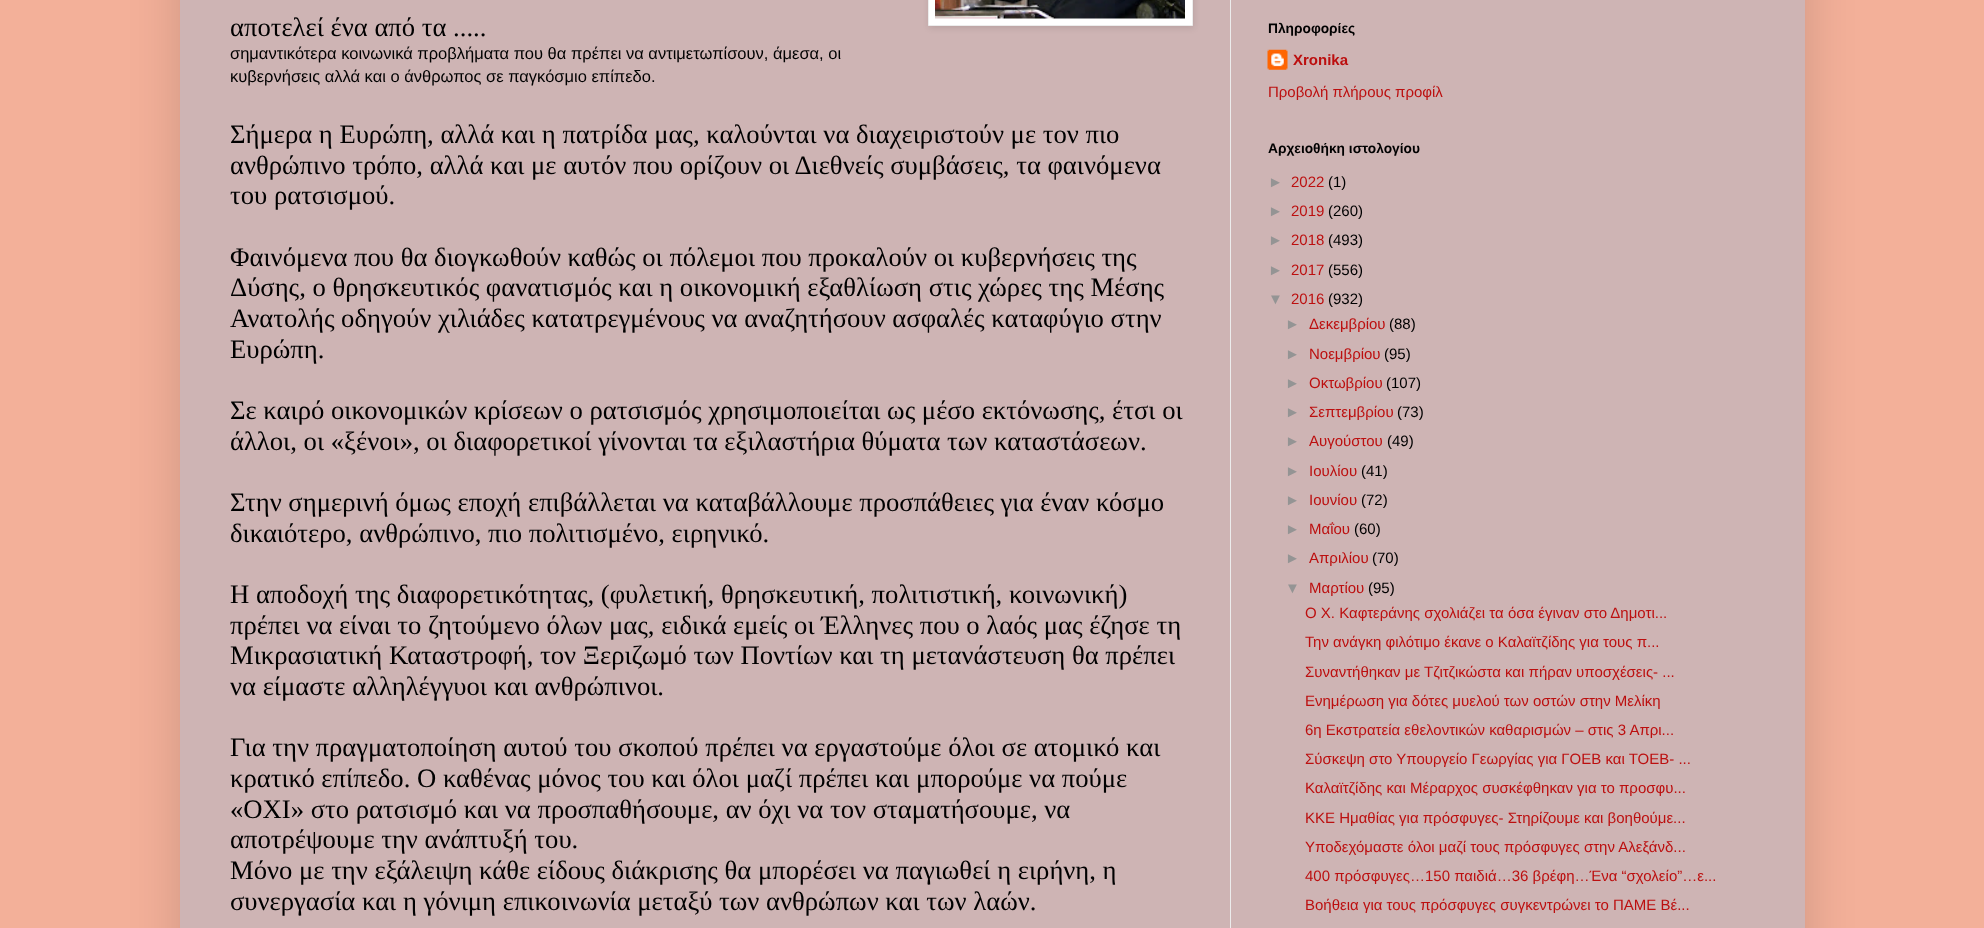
async function draw(canvas) {
	canvas.width = 1984;
	canvas.height = 928;
	const c = canvas.getContext('2d');
	c.miterLimit = 4;
	c.fontKerning = 'normal';
	async function loadImage(src) {
		const img = new Image();
		img.src = src;
		await img.decode();
		return img;
	}

	c.fillStyle = '#f3b099';
	c.fillRect(0, 0, 1984, 928);
	c.fillStyle = '#00000026';
	c.filter = 'blur(25px)';
	c.beginPath();
	c.rect(180, -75, 1625, 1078);
	c.fill();
	c.filter = 'none';
	c.fillStyle = '#ceb4b4';
	c.fillRect(180, 0, 1625, 928);
	c.fillStyle = '#ececec';
	c.fillRect(1230, 0, 1, 928);
	c.font = '26.65px Liberation Serif';
	c.fillStyle = '#000';
	c.fillText('αποτελεί ένα από τα .....', 230, 36);
	c.fillStyle = '#0000001a';
	c.filter = 'blur(3px)';
	c.beginPath();
	c.rect(929, -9, 265, 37);
	c.fill();
	c.filter = 'none';
	c.fillStyle = '#fff';
	c.beginPath();
	c.rect(928.5, -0.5, 264, 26);
	c.fill();
	c.strokeStyle = '#ececec';
	c.stroke();
	c.drawImage(await loadImage('img1.png'), 935, 0, 250, 19);
	c.font = '16.5px Liberation Sans';
	c.fillStyle = '#000';
	c.fillText('σημαντικότερα κοινωνικά προβλήματα που θα πρέπει να αντιμετωπίσουν, άμεσα, οι', 230, 59);
	c.fillText('κυβερνήσεις αλλά και ο άνθρωπος σε παγκόσμιο επίπεδο.', 230, 82);
	c.font = '26.65px Liberation Serif';
	for (const [text, x, y] of [
		['Σήμερα η Ευρώπη, αλλά και η πατρίδα μας, καλούνται να διαχειριστούν με τον πιο', 230, 143],
		['ανθρώπινο τρόπο, αλλά και με αυτόν που ορίζουν οι Διεθνείς συμβάσεις, τα φαινόμενα', 230, 174],
		['του ρατσισμού.', 230, 204],
		['Φαινόμενα που θα διογκωθούν καθώς οι πόλεμοι που προκαλούν οι κυβερνήσεις της', 230, 266],
		['Δύσης, ο θρησκευτικός φανατισμός και η οικονομική εξαθλίωση στις χώρες της Μέσης', 230, 296],
		['Ανατολής οδηγούν χιλιάδες κατατρεγμένους να αναζητήσουν ασφαλές καταφύγιο στην', 230, 327],
		['Ευρώπη.', 230, 358],
		['Σε καιρό οικονομικών κρίσεων ο ρατσισμός χρησιμοποιείται ως μέσο εκτόνωσης, έτσι οι', 230, 419],
		['άλλοι, οι «ξένοι», οι διαφορετικοί γίνονται τα εξιλαστήρια θύματα των καταστάσεων.', 230, 450],
		['Στην σημερινή όμως εποχή επιβάλλεται να καταβάλλουμε προσπάθειες για έναν κόσμο', 230, 511],
		['δικαιότερο, ανθρώπινο, πιο πολιτισμένο, ειρηνικό.', 230, 542],
		['Η αποδοχή της διαφορετικότητας, (φυλετική, θρησκευτική, πολιτιστική, κοινωνική)', 230, 603],
		['πρέπει να είναι το ζητούμενο όλων μας, ειδικά εμείς οι Έλληνες που ο λαός μας έζησε τη', 230, 634],
		['Μικρασιατική Καταστροφή, τον Ξεριζωμό των Ποντίων και τη μετανάστευση θα πρέπει', 230, 664],
		['να είμαστε αλληλέγγυοι και ανθρώπινοι.', 230, 695],
		['Για την πραγματοποίηση αυτού του σκοπού πρέπει να εργαστούμε όλοι σε ατομικό και', 230, 756],
		['κρατικό επίπεδο. Ο καθένας μόνος του και όλοι μαζί πρέπει και μπορούμε να πούμε', 230, 787],
		['«ΟΧΙ» στο ρατσισμό και να προσπαθήσουμε, αν όχι να τον σταματήσουμε, να', 230, 818],
		['αποτρέψουμε την ανάπτυξή του.', 230, 848],
		['Μόνο με την εξάλειψη κάθε είδους διάκρισης θα μπορέσει να παγιωθεί η ειρήνη, η', 230, 879],
		['συνεργασία και η γόνιμη επικοινωνία μεταξύ των ανθρώπων και των λαών.', 230, 910],
	]) {
		c.fillText(text, x, y);
	}
	c.font = 'bold 13.75px Liberation Sans';
	c.fillText('Πληροφορίες', 1268, 33);
	c.drawImage(await loadImage('img2.png'), 1267, 49, 21, 21);
	c.font = 'bold 15px Liberation Sans';
	c.fillStyle = '#bc0f0f';
	c.fillText('Xronika', 1293, 65);
	c.font = '15px Liberation Sans';
	c.fillText('Προβολή πλήρους προφίλ', 1268, 97);
	c.font = 'bold 13.75px Liberation Sans';
	c.fillStyle = '#000';
	c.fillText('Αρχειοθήκη ιστολογίου', 1268, 153);
	c.font = '15px Liberation Sans';
	c.fillStyle = '#949494';
	c.fillText('►', 1268, 187);
	c.fillStyle = '#bc0f0f';
	c.fillText('2022', 1291, 187);
	c.fillStyle = '#000';
	c.fillText('(1)', 1328, 187);
	c.fillStyle = '#949494';
	c.fillText('►', 1268, 216);
	c.fillStyle = '#bc0f0f';
	c.fillText('2019', 1291, 216);
	c.fillStyle = '#000';
	c.fillText('(260)', 1328, 216);
	c.fillStyle = '#949494';
	c.fillText('►', 1268, 245);
	c.fillStyle = '#bc0f0f';
	c.fillText('2018', 1291, 245);
	c.fillStyle = '#000';
	c.fillText('(493)', 1328, 245);
	c.fillStyle = '#949494';
	c.fillText('►', 1268, 275);
	c.fillStyle = '#bc0f0f';
	c.fillText('2017', 1291, 275);
	c.fillStyle = '#000';
	c.fillText('(556)', 1328, 275);
	c.fillStyle = '#949494';
	c.fillText('▼', 1268, 304);
	c.fillStyle = '#bc0f0f';
	c.fillText('2016', 1291, 304);
	c.fillStyle = '#000';
	c.fillText('(932)', 1328, 304);
	c.fillStyle = '#949494';
	c.fillText('►', 1285, 329);
	c.fillStyle = '#bc0f0f';
	c.fillText('Δεκεμβρίου', 1309, 329);
	c.fillStyle = '#000';
	c.fillText('(88)', 1389, 329);
	c.fillStyle = '#949494';
	c.fillText('►', 1285, 359);
	c.fillStyle = '#bc0f0f';
	c.fillText('Νοεμβρίου', 1309, 359);
	c.fillStyle = '#000';
	c.fillText('(95)', 1384, 359);
	c.fillStyle = '#949494';
	c.fillText('►', 1285, 388);
	c.fillStyle = '#bc0f0f';
	c.fillText('Οκτωβρίου', 1309, 388);
	c.fillStyle = '#000';
	c.fillText('(107)', 1386, 388);
	c.fillStyle = '#949494';
	c.fillText('►', 1285, 417);
	c.fillStyle = '#bc0f0f';
	c.fillText('Σεπτεμβρίου', 1309, 417);
	c.fillStyle = '#000';
	c.fillText('(73)', 1397, 417);
	c.fillStyle = '#949494';
	c.fillText('►', 1285, 446);
	c.fillStyle = '#bc0f0f';
	c.fillText('Αυγούστου', 1309, 446);
	c.fillStyle = '#000';
	c.fillText('(49)', 1387, 446);
	c.fillStyle = '#949494';
	c.fillText('►', 1285, 476);
	c.fillStyle = '#bc0f0f';
	c.fillText('Ιουλίου', 1309, 476);
	c.fillStyle = '#000';
	c.fillText('(41)', 1361, 476);
	c.fillStyle = '#949494';
	c.fillText('►', 1285, 505);
	c.fillStyle = '#bc0f0f';
	c.fillText('Ιουνίου', 1309, 505);
	c.fillStyle = '#000';
	c.fillText('(72)', 1361, 505);
	c.fillStyle = '#949494';
	c.fillText('►', 1285, 534);
	c.fillStyle = '#bc0f0f';
	c.fillText('Μαΐου', 1309, 534);
	c.fillStyle = '#000';
	c.fillText('(60)', 1354, 534);
	c.fillStyle = '#949494';
	c.fillText('►', 1285, 563);
	c.fillStyle = '#bc0f0f';
	c.fillText('Απριλίου', 1309, 563);
	c.fillStyle = '#000';
	c.fillText('(70)', 1372, 563);
	c.fillStyle = '#949494';
	c.fillText('▼', 1285, 593);
	c.fillStyle = '#bc0f0f';
	c.fillText('Μαρτίου', 1309, 593);
	c.fillStyle = '#000';
	c.fillText('(95)', 1368, 593);
	c.fillStyle = '#bc0f0f';
	for (const [text, x, y] of [
		['Ο Χ. Καφτεράνης σχολιάζει τα όσα έγιναν στο Δημοτι...', 1305, 618],
		['Την ανάγκη φιλότιμο έκανε ο Καλαϊτζίδης για τους π...', 1305, 647],
		['Συναντήθηκαν με Τζιτζικώστα και πήραν υποσχέσεις- ...', 1305, 677],
		['Ενημέρωση για δότες μυελού των οστών στην Μελίκη', 1305, 706],
		['6η Εκστρατεία εθελοντικών καθαρισμών – στις 3 Απρι...', 1305, 735],
		['Σύσκεψη στο Υπουργείο Γεωργίας για ΓΟΕΒ και ΤΟΕΒ- ...', 1305, 764],
		['Καλαϊτζίδης και Μέραρχος συσκέφθηκαν για το προσφυ...', 1305, 793],
		['ΚΚΕ Ημαθίας για πρόσφυγες- Στηρίζουμε και βοηθούμε...', 1305, 823],
		['Υποδεχόμαστε όλοι μαζί τους πρόσφυγες στην Αλεξάνδ...', 1305, 852],
		['400 πρόσφυγες…150 παιδιά…36 βρέφη…Ένα “σχολείο”…ε...', 1305, 881],
		['Βοήθεια για τους πρόσφυγες συγκεντρώνει το ΠΑΜΕ Βέ...', 1305, 910],
	]) {
		c.fillText(text, x, y);
	}
}

draw(document.querySelector('canvas'));
